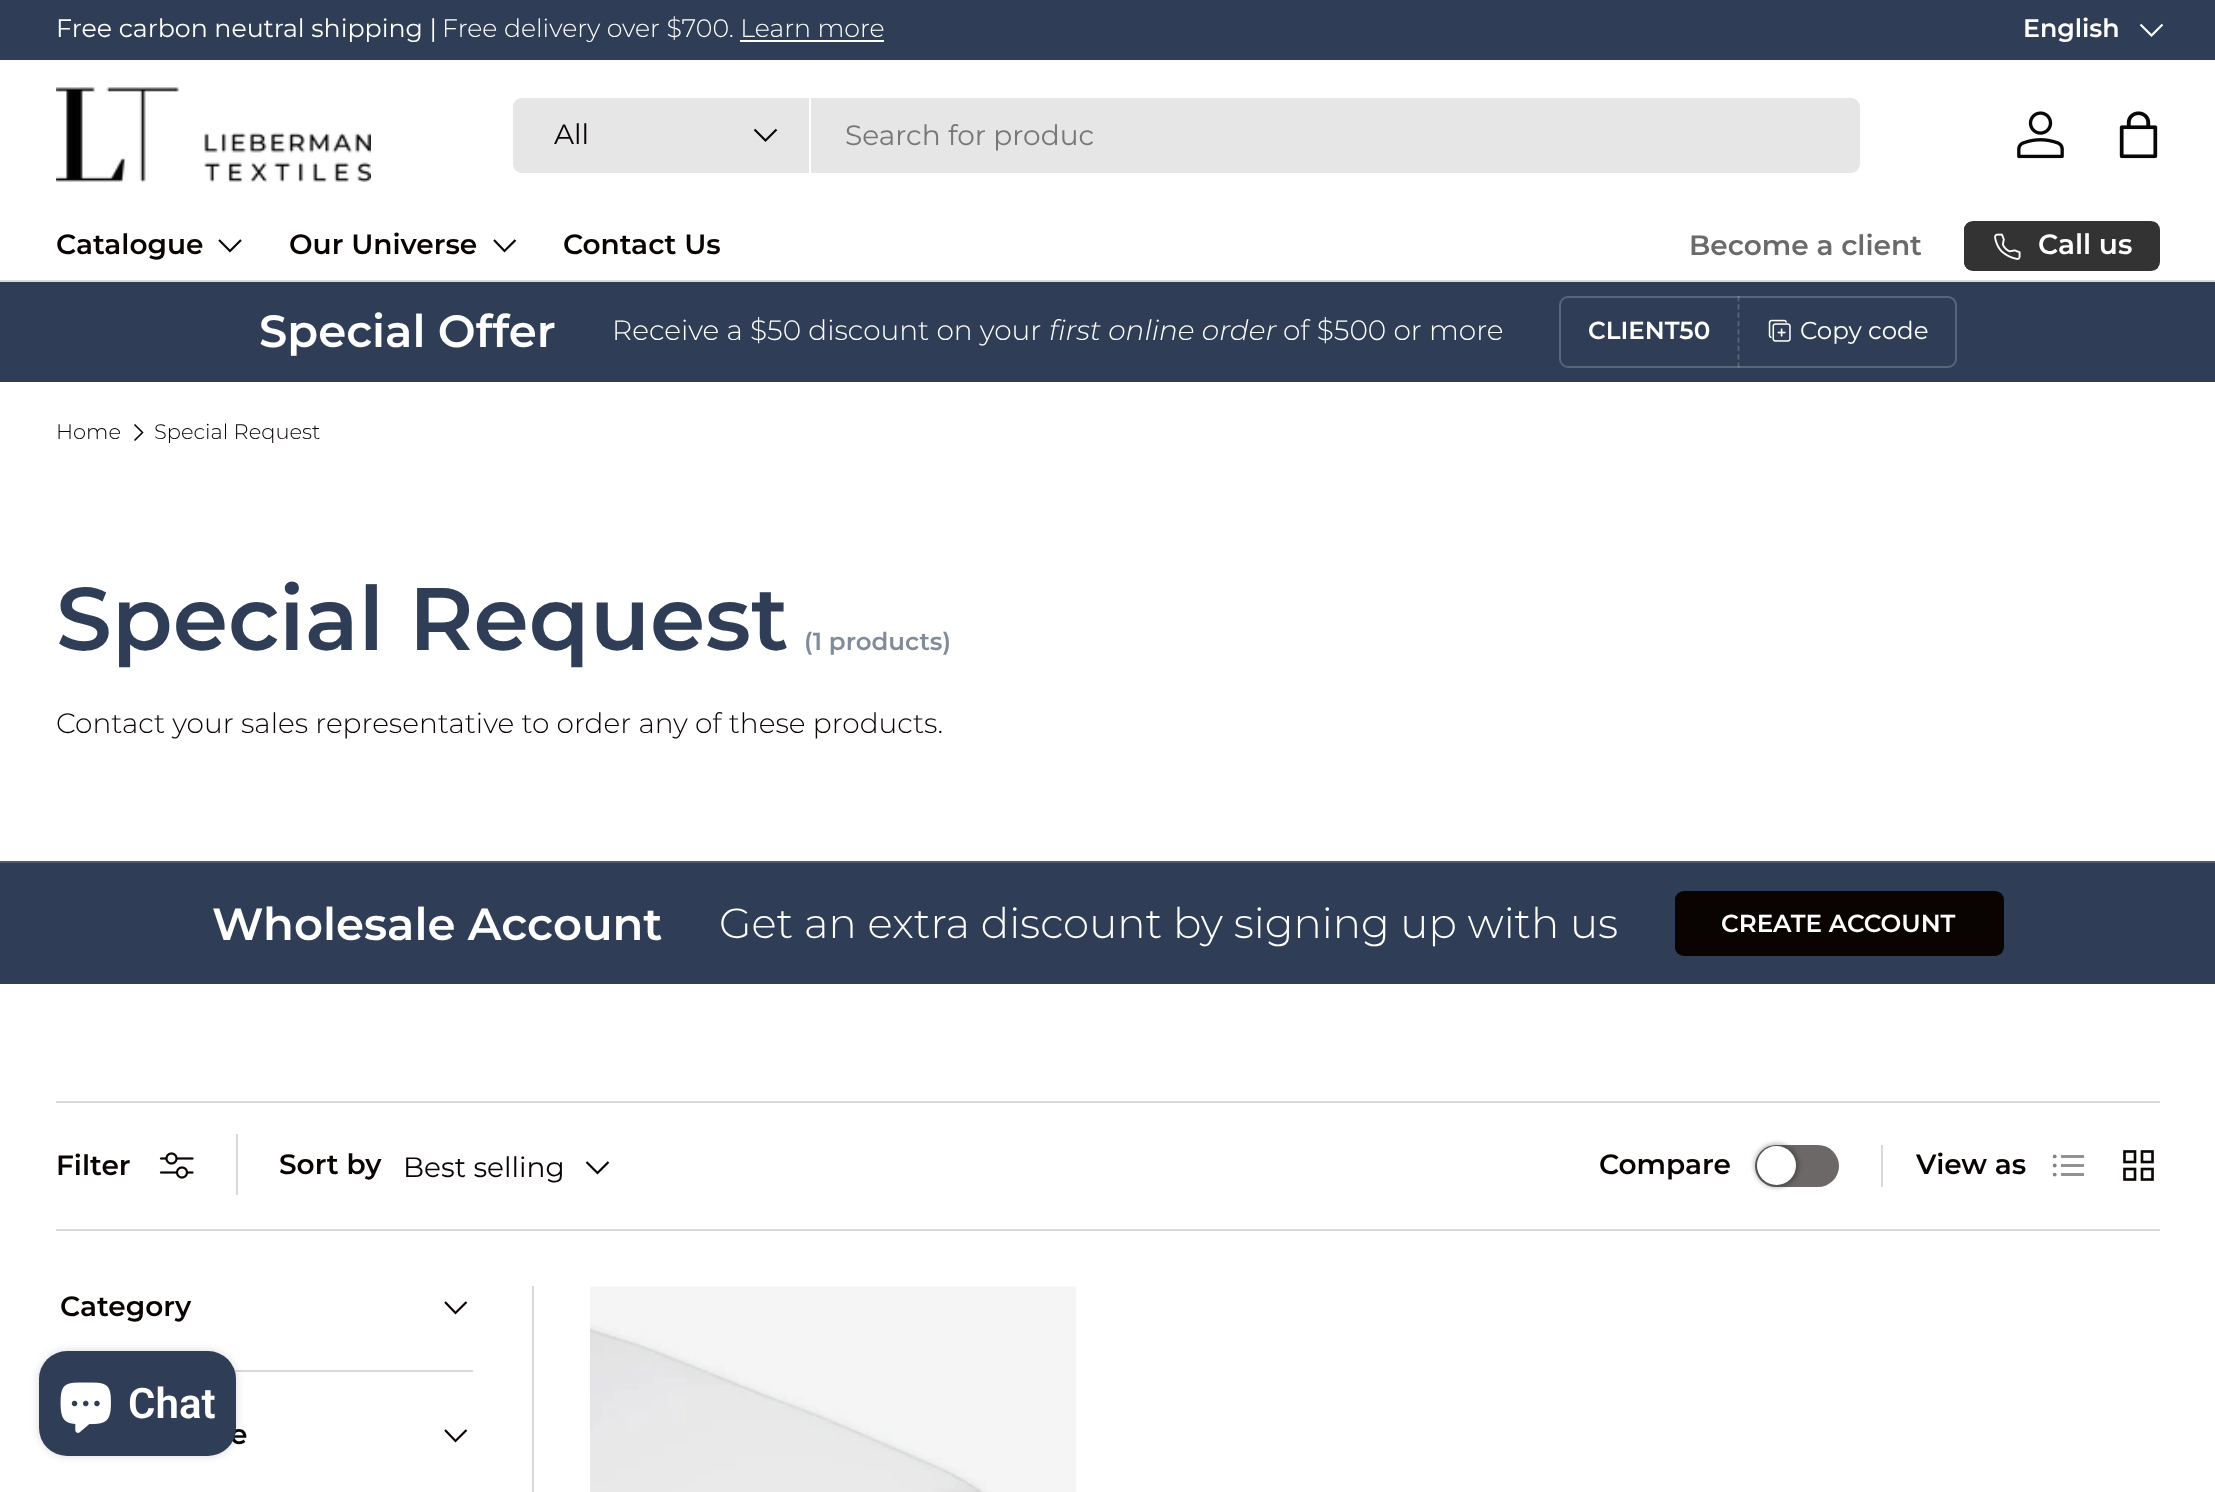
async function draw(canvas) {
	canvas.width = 2215;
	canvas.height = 1492;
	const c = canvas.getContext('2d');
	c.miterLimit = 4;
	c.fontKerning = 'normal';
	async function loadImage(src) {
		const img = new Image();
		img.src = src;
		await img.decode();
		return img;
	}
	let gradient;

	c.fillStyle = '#fff';
	c.fillRect(0, 0, 2215, 1492);
	c.fillStyle = '#2f3e56';
	c.fillRect(0, 0, 2215, 60);
	c.font = '25.25px Montserrat';
	c.fillStyle = '#fff';
	c.fillText('Free carbon neutral shipping |', 56, 37);
	c.font = '300 25.25px Montserrat';
	c.fillText('Free delivery over $700. Learn more', 442, 37);
	c.fillRect(740, 40, 144, 2);
	c.font = '600 25.25px Montserrat';
	c.fillText('English', 2023, 37);
	c.beginPath();
	c.moveTo(2162.5, 24.5);
	c.lineTo(2151.5, 35.5);
	c.lineTo(2140.5, 24.5);
	c.strokeStyle = '#fff';
	c.lineWidth = 2.2;
	c.stroke();
	c.fillStyle = '#dadada';
	c.fillRect(0, 280, 2215, 2);
	c.drawImage(await loadImage('img1.png'), 56, 87, 315, 95);
	c.fillStyle = '#e6e6e6';
	c.beginPath();
	c.roundRect(513, 98, 1347, 75, 9);
	c.fill();
	c.beginPath();
	c.roundRect(513, 98, 297, 75, [9, 0, 0, 9]);
	c.fill();
	c.fillStyle = '#fff';
	c.fillRect(809, 98, 2, 75);
	c.font = '28px Montserrat';
	c.fillStyle = '#090302';
	c.fillText('All', 554, 144);
	c.beginPath();
	c.moveTo(776.5, 129.5);
	c.lineTo(765.5, 140.5);
	c.lineTo(754.5, 129.5);
	c.strokeStyle = '#070707';
	c.stroke();
	c.fillStyle = '#777';
	c.fillText('Search for produc', 845, 145);
	c.drawImage(await loadImage('img2.png'), 2017, 111, 47, 48);
	c.drawImage(await loadImage('img3.png'), 2119, 111, 39, 48);
	c.font = '600 28px Montserrat';
	c.fillStyle = '#090302';
	c.fillText('Catalogue', 56, 254);
	c.beginPath();
	c.moveTo(241, 240);
	c.lineTo(230, 251);
	c.lineTo(219, 240);
	c.stroke();
	c.fillText('Our Universe', 289, 254);
	c.beginPath();
	c.moveTo(515.5, 240);
	c.lineTo(504.5, 251);
	c.lineTo(494, 240);
	c.stroke();
	c.fillText('Contact Us', 563, 254);
	c.fillStyle = '#6a6a6a';
	c.fillText('Become a client', 1689, 255);
	c.save();
	c.beginPath();
	c.roundRect(1964, 221, 196, 50, 9);
	c.clip();
	gradient = c.createLinearGradient(1592, 177, 2146, 315);
	gradient.addColorStop(0.6, '#5a5a5a');
	gradient.addColorStop(0.6, '#333');
	gradient.addColorStop(1, '#333');
	c.fillStyle = gradient;
	c.fillRect(1964, 222, 194, 48);
	c.restore();
	c.beginPath();
	c.roundRect(1965, 222, 194, 48, 8);
	c.strokeStyle = '#333';
	c.lineWidth = 2;
	c.stroke();
	c.drawImage(await loadImage('img4.png'), 1994, 233, 27, 27);
	c.fillStyle = '#fff';
	c.fillText('Call us', 2038, 254);
	c.fillStyle = '#2f3e56';
	c.fillRect(0, 282, 2215, 100);
	c.font = '600 45px Montserrat';
	c.fillStyle = '#fff';
	c.fillText('Special Offer', 259, 347);
	c.font = '300 28px Montserrat';
	c.fillText('Receive a $50 discount on your', 612, 340);
	c.font = 'italic 300 28px Montserrat';
	c.fillText('first online order', 1049, 340);
	c.font = '300 28px Montserrat';
	c.fillText('of $500 or more', 1283, 340);
	c.beginPath();
	c.roundRect(1560, 297, 396, 70, 8);
	c.strokeStyle = '#596578';
	c.stroke();
	c.font = '600 24.6px Montserrat';
	c.fillText('CLIENT50', 1588, 339);
	c.beginPath();
	c.moveTo(1738.5, 296);
	c.lineTo(1738.5, 367.5);
	c.strokeStyle = '#ffffff33';
	c.lineWidth = 1.8;
	c.setLineDash([5.25, 3.06]);
	c.stroke();
	c.drawImage(await loadImage('img5.png'), 1768, 319, 23, 23);
	c.font = '24.5px Montserrat';
	c.fillText('Copy code', 1800, 339);
	c.font = '300 21px Montserrat';
	c.fillStyle = '#090302';
	c.fillText('Home', 56, 439);
	c.beginPath();
	c.moveTo(134.5, 424.5);
	c.lineTo(142.5, 432.5);
	c.lineTo(134.5, 440.5);
	c.strokeStyle = '#090302';
	c.lineWidth = 1.6;
	c.setLineDash([]);
	c.stroke();
	c.fillText('Special Request', 154, 439);
	c.font = '600 88.75px Montserrat';
	c.fillStyle = '#2f3e56';
	c.fillText('Special Request', 56, 650);
	c.font = '600 24.5px Montserrat';
	c.fillStyle = '#828b9a';
	c.fillText('(1 products)', 804, 650);
	c.font = '300 28px Montserrat';
	c.fillStyle = '#090302';
	c.fillText('Contact your sales representative to order any of these products.', 56, 733);
	c.fillStyle = '#2f3e56';
	c.fillRect(0, 863, 2215, 121);
	c.fillStyle = '#4e5b6f';
	c.fillRect(0, 861, 2215, 2);
	c.font = '600 45px Montserrat';
	c.fillStyle = '#fff';
	c.fillText('Wholesale Account', 212, 940);
	c.font = '300 42px Montserrat';
	c.fillText('Get an extra discount by signing up with us', 719, 938);
	c.save();
	c.beginPath();
	c.roundRect(1675, 891, 329, 65, 9);
	c.clip();
	gradient = c.createLinearGradient(1047, 807, 1981, 1040);
	gradient.addColorStop(0.6, '#36302f');
	gradient.addColorStop(0.6, '#090302');
	gradient.addColorStop(1, '#090302');
	c.fillStyle = gradient;
	c.fillRect(1675, 893, 327, 61);
	c.restore();
	c.beginPath();
	c.roundRect(1676, 892, 327, 63, 8);
	c.lineWidth = 2;
	c.stroke();
	c.font = '600 24.6px Montserrat';
	c.fillText('CREATE ACCOUNT', 1721, 932);
	c.fillStyle = '#dad9d9';
	c.fillRect(56, 1101, 2104, 2);
	c.fillRect(56, 1229, 2104, 2);
	c.font = '600 28px Montserrat';
	c.fillStyle = '#090302';
	c.fillText('Filter', 56, 1175);
	c.drawImage(await loadImage('img6.png'), 159, 1152, 35, 27);
	c.fillStyle = '#dad9d9';
	c.fillRect(236, 1134, 2, 61);
	c.fillStyle = '#090302';
	c.fillText('Sort by', 279, 1174);
	c.font = '28px Montserrat';
	c.fillText('Best selling', 403, 1177);
	c.beginPath();
	c.moveTo(608.5, 1162);
	c.lineTo(597.5, 1173);
	c.lineTo(586.5, 1162);
	c.lineWidth = 2.2;
	c.stroke();
	c.fillStyle = '#6b6867';
	c.beginPath();
	c.roundRect(1755, 1145, 84, 42, 21);
	c.fill();
	c.fillStyle = '#00000040';
	c.filter = 'blur(2px)';
	c.beginPath();
	c.roundRect(1754, 1143, 45, 45, 22.5);
	c.fill();
	c.filter = 'none';
	c.fillStyle = '#fff';
	c.beginPath();
	c.arc(1776.5, 1165.5, 19.5, 0, 2 * Math.PI);
	c.fill();
	c.font = '600 28px Montserrat';
	c.fillStyle = '#090302';
	c.fillText('Compare', 1599, 1174);
	c.fillStyle = '#dad9d9';
	c.fillRect(1881, 1145, 2, 42);
	c.fillStyle = '#090302';
	c.fillText('View as', 1916, 1174);
	c.fillStyle = '#848181';
	c.beginPath();
	c.arc(2054.7, 1156.4, 1.9, 0, 2 * Math.PI);
	c.fill();
	c.fillStyle = '#949291';
	c.fillRect(2061, 1155, 23, 3);
	c.fillStyle = '#848181';
	c.beginPath();
	c.arc(2054.7, 1165.5, 1.9, 0, 2 * Math.PI);
	c.fill();
	c.fillStyle = '#949291';
	c.fillRect(2061, 1164, 23, 3);
	c.fillStyle = '#848181';
	c.beginPath();
	c.arc(2054.7, 1174.6, 1.9, 0, 2 * Math.PI);
	c.fill();
	c.fillStyle = '#949291';
	c.fillRect(2061, 1173, 23, 3);
	c.drawImage(await loadImage('img7.png'), 2123, 1150, 31, 31);
	c.fillStyle = '#dad9d9';
	c.fillRect(532, 1286, 2, 206);
	c.fillRect(234, 1370, 239, 2);
	c.fillStyle = '#090302';
	c.fillText('Category', 60, 1316);
	c.beginPath();
	c.moveTo(466.5, 1302);
	c.lineTo(455.5, 1313);
	c.lineTo(445, 1302);
	c.stroke();
	c.fillText('e', 230, 1444);
	c.beginPath();
	c.moveTo(466.5, 1430);
	c.lineTo(455.5, 1441);
	c.lineTo(445, 1430);
	c.stroke();
	c.drawImage(await loadImage('img8.png'), 590, 1286, 486, 206);
	c.fillStyle = '#00000026';
	c.filter = 'blur(4.5px)';
	c.beginPath();
	c.roundRect(39, 1351, 197, 105, 28);
	c.fill();
	c.filter = 'none';
	c.fillStyle = '#2f3e56';
	c.beginPath();
	c.roundRect(39, 1351, 197, 105, 28);
	c.fill();
	c.drawImage(await loadImage('img9.png'), 60, 1382, 51, 51);
	c.font = '600 42px Roboto';
	c.fillStyle = '#fff';
	c.fillText('Chat', 128, 1418);
}

draw(document.querySelector('canvas'));
